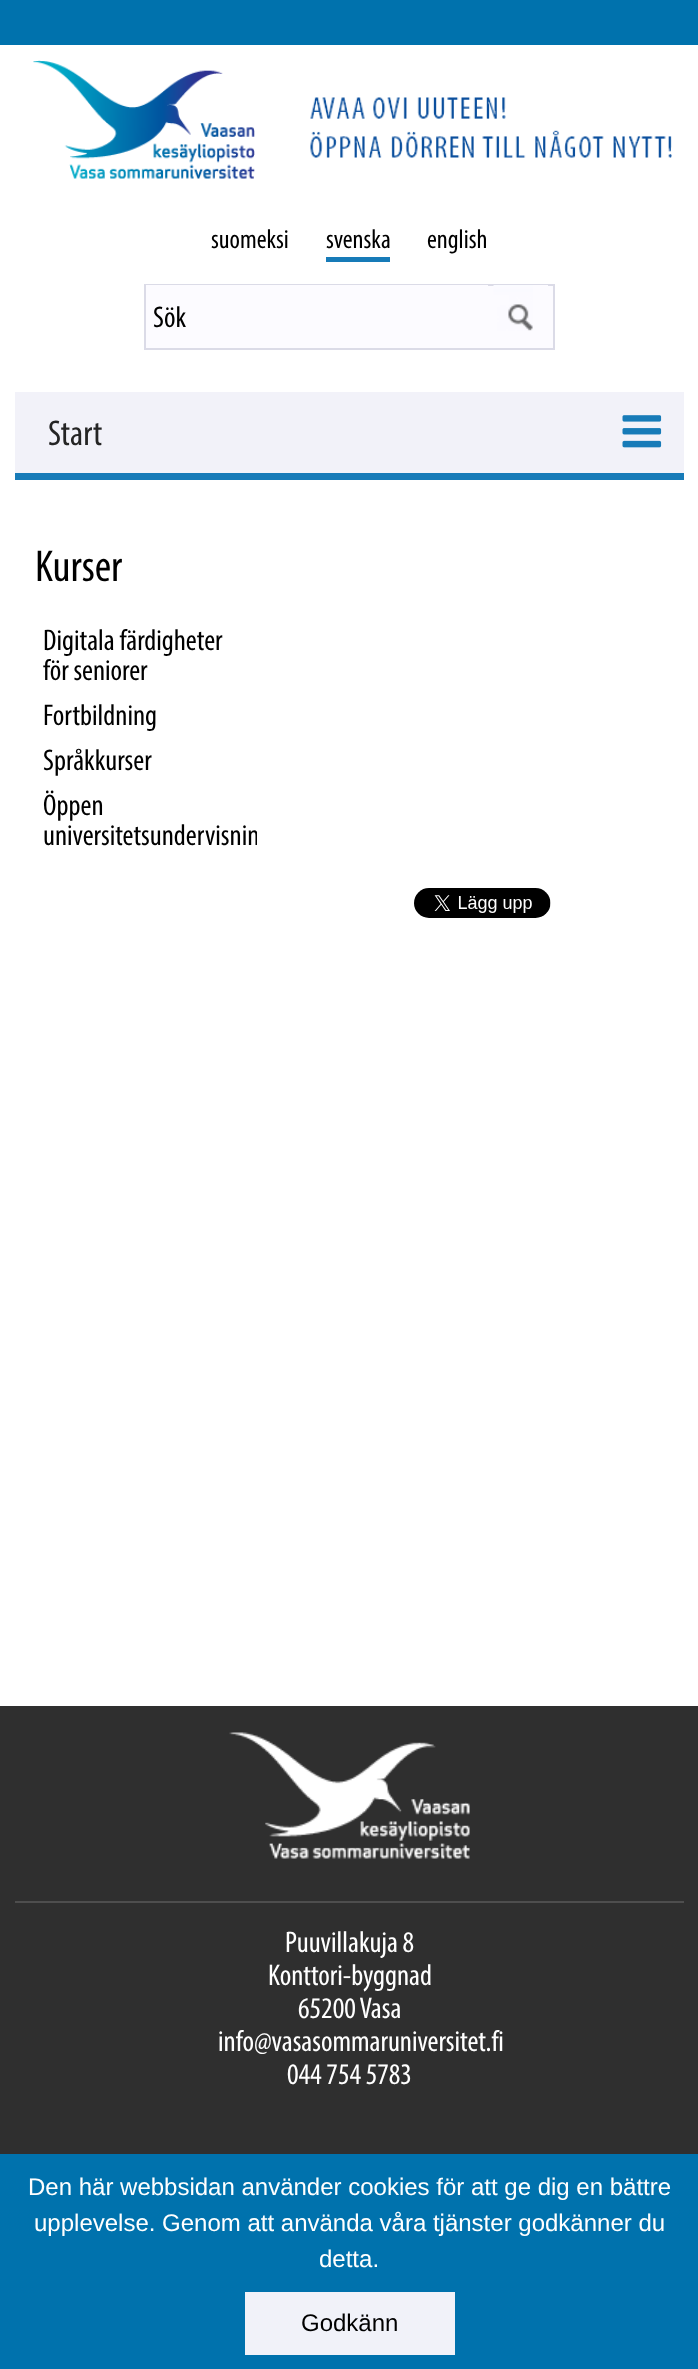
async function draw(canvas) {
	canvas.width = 698;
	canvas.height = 2369;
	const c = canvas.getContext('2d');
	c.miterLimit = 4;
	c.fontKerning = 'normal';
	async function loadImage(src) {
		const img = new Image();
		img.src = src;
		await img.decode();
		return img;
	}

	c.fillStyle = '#fff';
	c.fillRect(0, 0, 698, 2369);
	c.fillStyle = '#0072ad';
	c.fillRect(0, 0, 698, 45);
	c.drawImage(await loadImage('img1.png'), 33, 60, 222, 119);
	c.drawImage(await loadImage('img2.png'), 310, 97, 362, 61);
	c.font = '27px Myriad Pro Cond';
	c.fillStyle = '#000';
	c.fillText('suomeksi', 211, 248);
	c.fillText('svenska', 326, 248);
	c.fillStyle = '#177bb8';
	c.fillRect(326, 257, 64, 5);
	c.fillStyle = '#000';
	c.fillText('english', 427, 248);
	c.fillStyle = '#fcfbff';
	c.fillRect(488, 286, 65, 62);
	c.strokeStyle = '#dbdbe7';
	c.lineWidth = 2;
	c.strokeRect(145, 285, 409, 64);
	c.fillRect(146, 285, 342, 63);
	c.font = '30px Myriad Pro Cond';
	c.fillStyle = '#000';
	c.fillText('Sök', 153, 327);
	c.fillStyle = '#fcfbff';
	c.fillRect(494, 285, 54, 1);
	c.drawImage(await loadImage('img3.png'), 493, 285, 40, 46);
	c.fillStyle = '#f2f2f9';
	c.fillRect(15, 392, 669, 81);
	c.fillStyle = '#177bb8';
	c.fillRect(15, 473, 669, 7);
	c.font = '36px Myriad Pro Cond';
	c.fillStyle = '#252525';
	c.fillText('Start', 48, 445);
	c.drawImage(await loadImage('img4.png'), 622, 415, 40, 33);
	c.font = '45px Myriad Pro Cond';
	c.fillStyle = '#000';
	c.fillText('Kurser', 35, 581);
	c.font = '30px Myriad Pro Cond';
	for (const [text, x, y] of [
		['Digitala färdigheter', 43, 650],
		['för seniorer', 43, 680],
		['Fortbildning', 43, 725],
		['Språkkurser', 43, 770],
		['Öppen', 43, 815],
	]) {
		c.fillText(text, x, y);
	}
	c.save();
	c.beginPath();
	c.rect(35, 618, 222, 240);
	c.clip();
	c.fillText('universitetsundervisnin', 43, 845);
	c.restore();
	c.drawImage(await loadImage('img5.png'), 414, 888, 137, 30);
	c.fillStyle = '#2f2f2f';
	c.fillRect(0, 1706, 698, 448);
	c.fillStyle = '#4e4e4e';
	c.fillRect(15, 1901, 669, 2);
	c.drawImage(await loadImage('img6.png'), 229, 1732, 241, 127);
	c.fillStyle = '#fff';
	for (const [text, x, y] of [
		['Puuvillakuja 8', 285, 1952],
		['Konttori-byggnad', 268, 1985],
		['65200 Vasa', 298, 2018],
		['info@vasasommaruniversitet.fi', 218, 2051],
		['044 754 5783', 287, 2084],
	]) {
		c.fillText(text, x, y);
	}
	c.fillStyle = '#0072ad';
	c.fillRect(0, 2154, 698, 215);
	c.font = '24px Liberation Sans';
	c.fillStyle = '#fff';
	for (const [text, x, y] of [
		['Den här webbsidan använder cookies för att ge dig en bättre', 28, 2195],
		['upplevelse. Genom att använda våra tjänster godkänner du', 34, 2231],
		['detta.', 319, 2267],
	]) {
		c.fillText(text, x, y);
	}
	c.fillStyle = '#f1f2f9';
	c.fillRect(245, 2292, 210, 63);
	c.fillStyle = '#000';
	c.fillText('Godkänn', 301, 2331);
}

draw(document.querySelector('canvas'));
